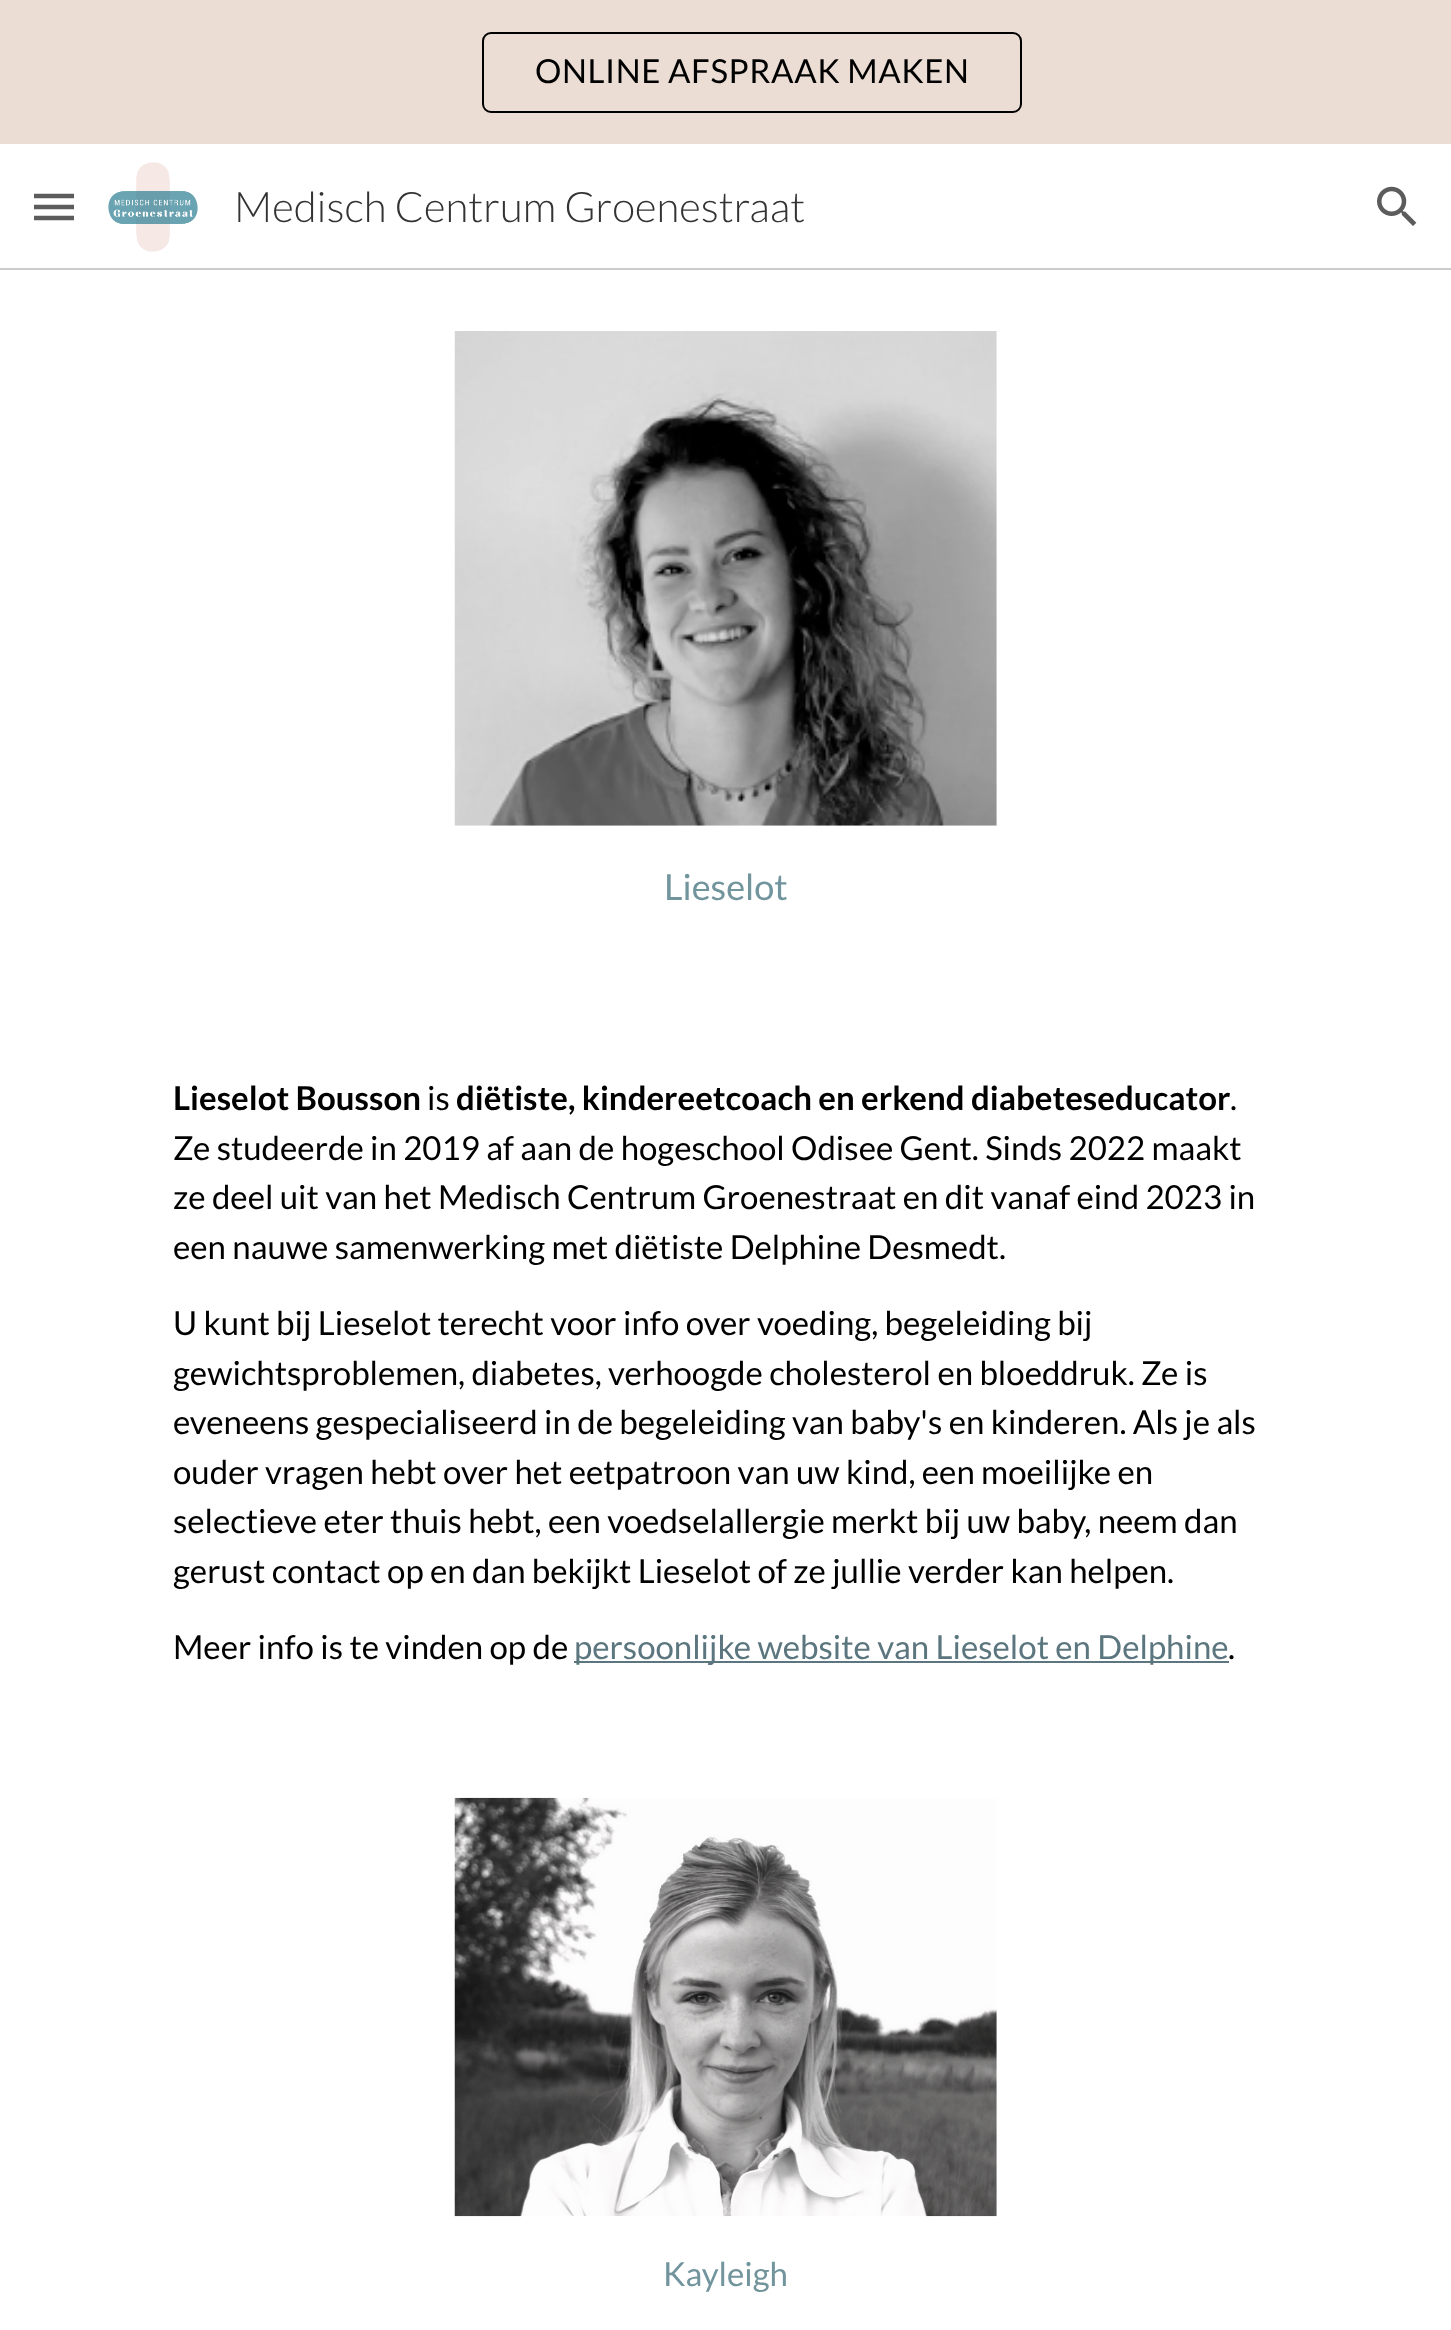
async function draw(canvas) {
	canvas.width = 1451;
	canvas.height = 2330;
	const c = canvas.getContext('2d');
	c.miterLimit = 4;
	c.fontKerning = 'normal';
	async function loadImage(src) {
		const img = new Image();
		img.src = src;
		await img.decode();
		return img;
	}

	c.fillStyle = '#fff';
	c.fillRect(0, 0, 1451, 2330);
	c.fillStyle = '#ebddd4';
	c.fillRect(0, 0, 1451, 144);
	c.beginPath();
	c.roundRect(483, 33, 538, 79, 8);
	c.strokeStyle = '#000';
	c.lineWidth = 2;
	c.stroke();
	c.letterSpacing = '0.6px';
	c.font = '33px Lato';
	c.fillStyle = '#000';
	c.fillText('ONLINE AFSPRAAK MAKEN', 535, 83);
	c.beginPath();
	c.moveTo(34, 196);
	c.lineTo(74, 196);
	c.moveTo(34, 207);
	c.lineTo(74, 207);
	c.moveTo(34, 218);
	c.lineTo(74, 218);
	c.strokeStyle = '#5c5c5c';
	c.lineWidth = 4.5;
	c.stroke();
	c.drawImage(await loadImage('img1.png'), 108, 162, 90, 90);
	c.letterSpacing = '0px';
	c.font = '300 42px Lato';
	c.fillStyle = '#333';
	c.fillText('Medisch Centrum Groenestraat', 234, 222);
	c.drawImage(await loadImage('img2.png'), 1377, 186, 40, 40);
	c.fillStyle = '#ccc';
	c.fillRect(0, 268, 1451, 2);
	c.drawImage(await loadImage('img3.png'), 454, 331, 543, 495);
	c.font = '36px Lato';
	c.fillStyle = '#72949d';
	c.fillText('Lieselot', 664, 900);
	c.font = 'bold 33px Lato';
	c.fillStyle = '#000';
	c.fillText('Lieselot Bousson', 173, 1110);
	c.font = '33px Lato';
	c.fillText('is', 427, 1110);
	c.font = 'bold 33px Lato';
	c.fillText('diëtiste, kindereetcoach en erkend diabeteseducator', 456, 1110);
	c.font = '33px Lato';
	for (const [text, x, y] of [
		['.', 1230, 1110],
		['Ze studeerde in 2019 af aan de hogeschool Odisee Gent. Sinds 2022 maakt', 173, 1160],
		['ze deel uit van het Medisch Centrum Groenestraat en dit vanaf eind 2023 in', 173, 1209],
		['een nauwe samenwerking met diëtiste Delphine Desmedt.', 173, 1259],
		['U kunt bij Lieselot terecht voor info over voeding, begeleiding bij', 173, 1335],
		['gewichtsproblemen, diabetes, verhoogde cholesterol en bloeddruk. Ze is', 173, 1385],
		['eveneens gespecialiseerd in de begeleiding van baby\'s en kinderen. Als je als', 173, 1434],
		['ouder vragen hebt over het eetpatroon van uw kind, een moeilijke en', 173, 1484],
		['selectieve eter thuis hebt, een voedselallergie merkt bij uw baby, neem dan', 173, 1533],
		['gerust contact op en dan bekijkt Lieselot of ze jullie verder kan helpen.', 173, 1583],
		['Meer info is te vinden op de', 173, 1659],
	]) {
		c.fillText(text, x, y);
	}
	c.fillStyle = '#5b767e';
	c.fillRect(574, 1661, 655, 2);
	c.fillText('persoonlijke website van Lieselot en Delphine', 574, 1659);
	c.fillStyle = '#000';
	c.fillText('.', 1228, 1659);
	c.drawImage(await loadImage('img4.png'), 454, 1797, 543, 420);
	c.fillStyle = '#72949d';
	c.fillText('Kayleigh', 663, 2286);
}

draw(document.querySelector('canvas'));
